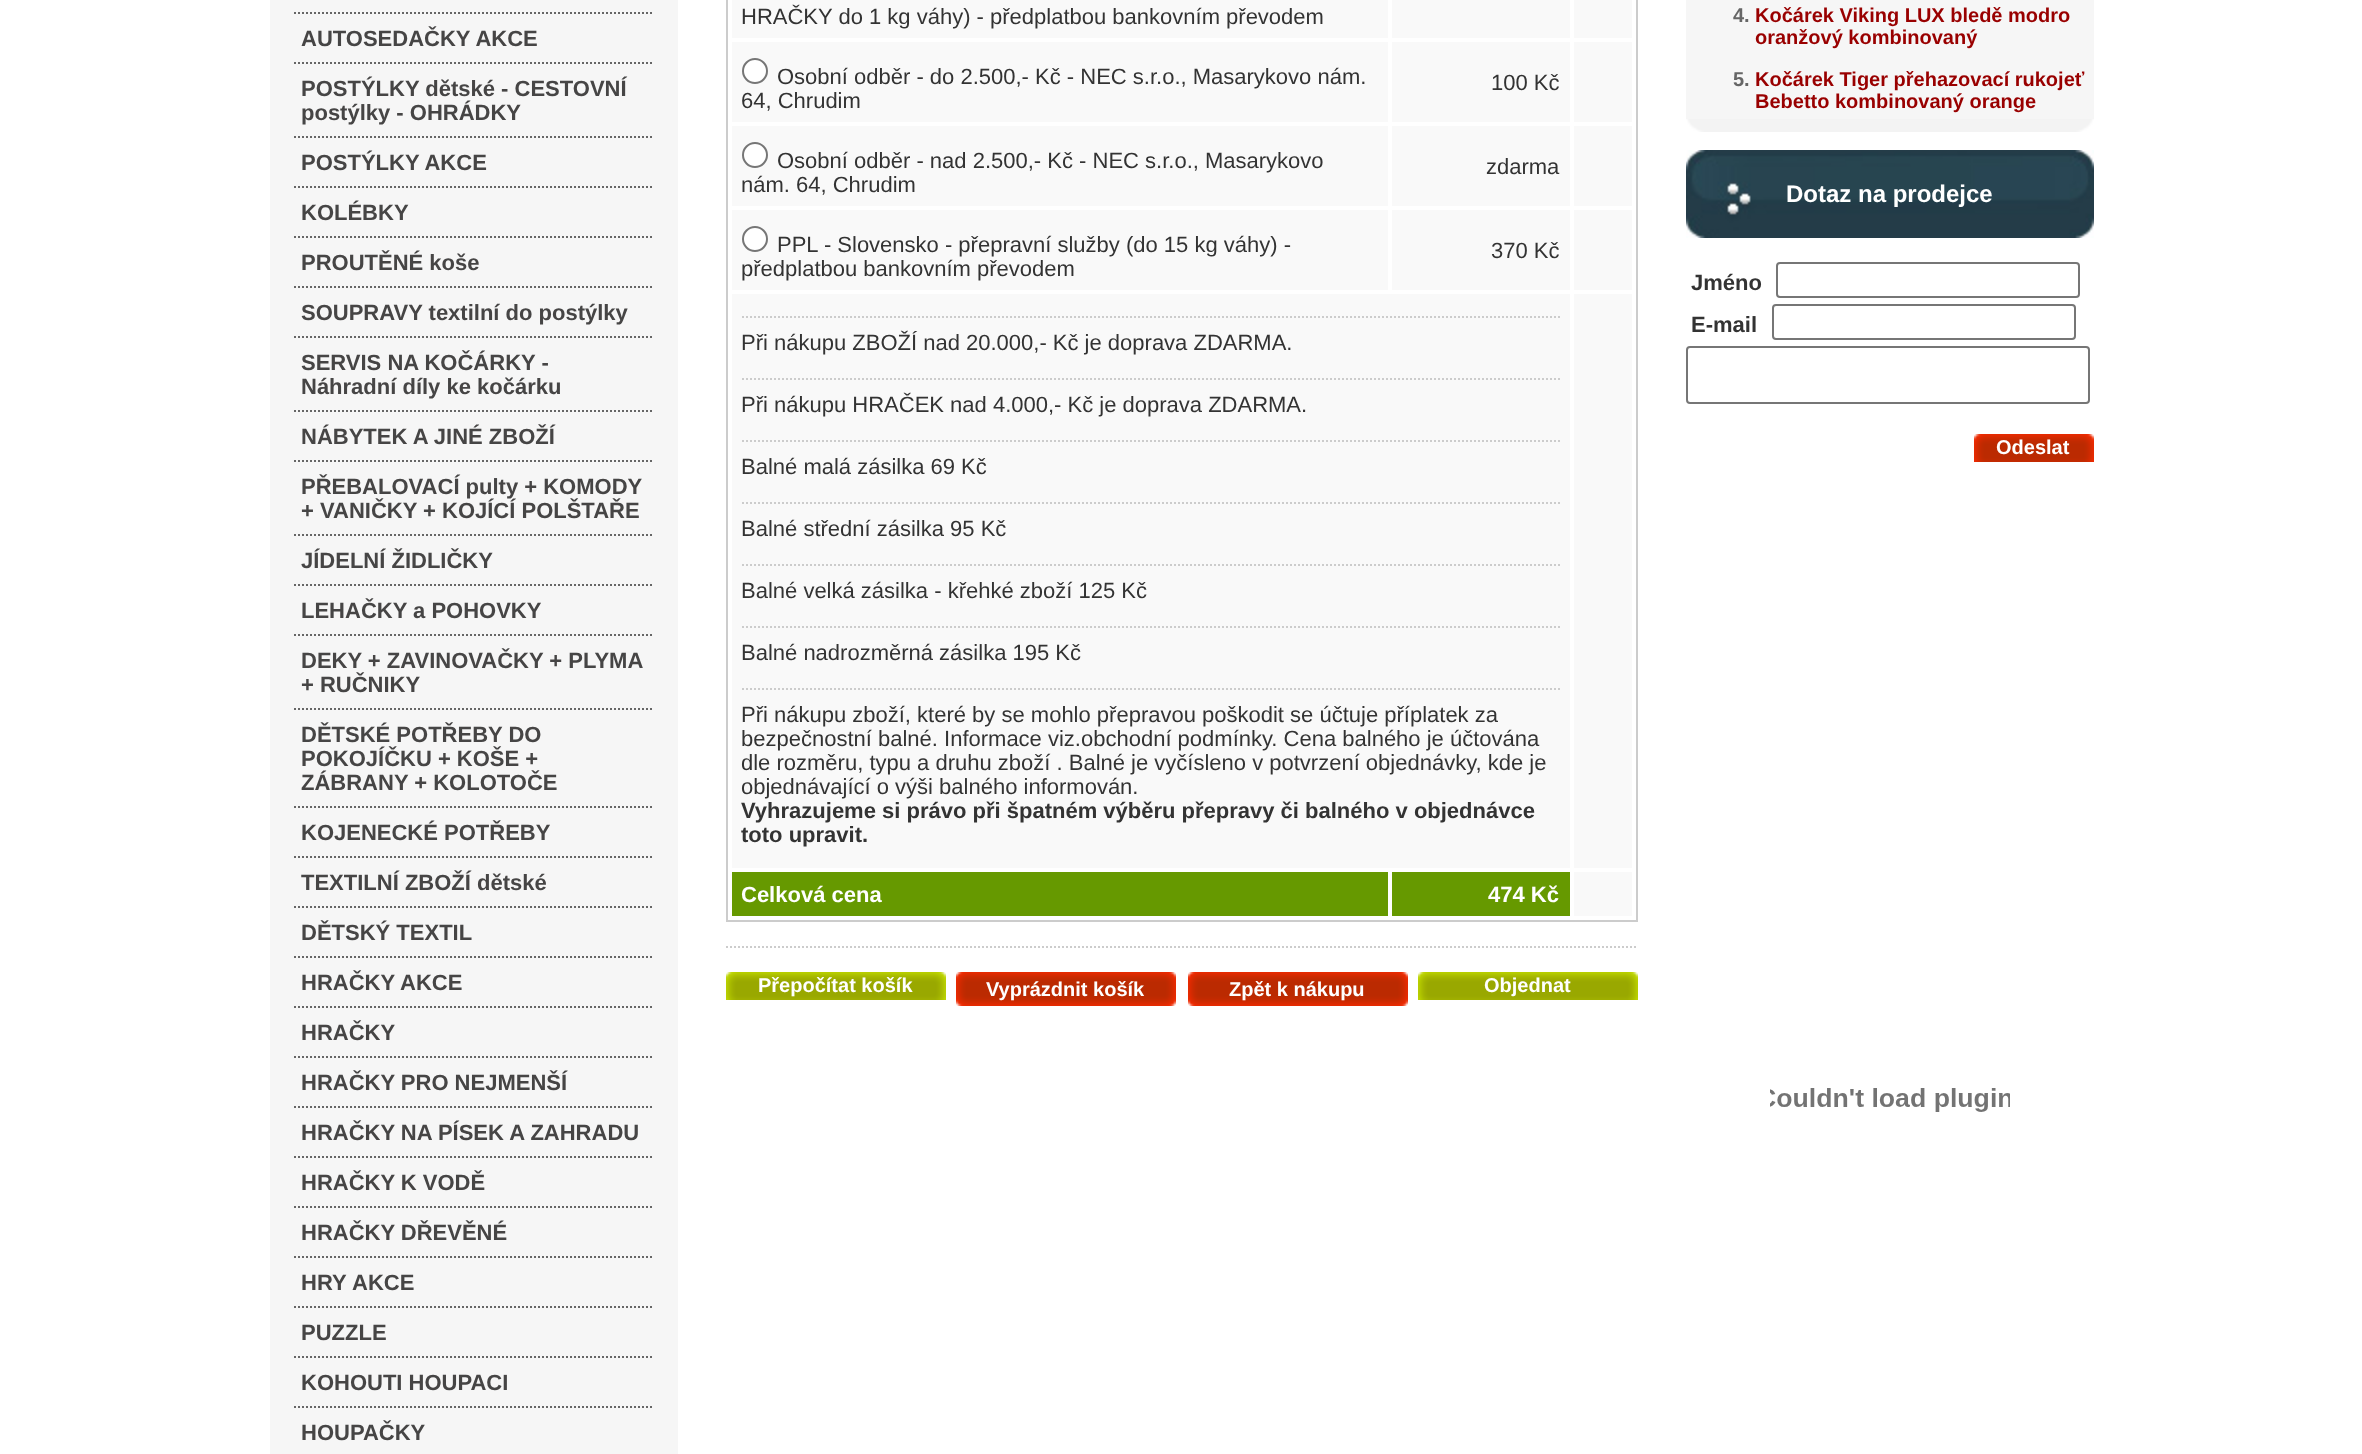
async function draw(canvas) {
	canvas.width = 2362;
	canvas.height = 1454;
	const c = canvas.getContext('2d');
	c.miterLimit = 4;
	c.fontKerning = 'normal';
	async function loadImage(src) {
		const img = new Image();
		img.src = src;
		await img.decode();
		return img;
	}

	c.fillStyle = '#fff';
	c.fillRect(0, 0, 2362, 1454);
	c.fillStyle = '#f6f6f6';
	c.fillRect(270, 0, 408, 1454);
	c.beginPath();
	c.moveTo(294, 13);
	c.lineTo(654, 13);
	c.strokeStyle = '#666';
	c.lineWidth = 2;
	c.setLineDash([2, 2]);
	c.stroke();
	c.beginPath();
	c.moveTo(294, 63);
	c.lineTo(654, 63);
	c.stroke();
	c.font = 'bold 22px Liberation Sans';
	c.fillStyle = '#464545';
	c.fillText('AUTOSEDAČKY AKCE', 301, 46);
	c.beginPath();
	c.moveTo(294, 137);
	c.lineTo(654, 137);
	c.stroke();
	c.fillText('POSTÝLKY dětské - CESTOVNÍ', 301, 96);
	c.fillText('postýlky - OHRÁDKY', 301, 120);
	c.beginPath();
	c.moveTo(294, 187);
	c.lineTo(654, 187);
	c.stroke();
	c.fillText('POSTÝLKY AKCE', 301, 170);
	c.beginPath();
	c.moveTo(294, 237);
	c.lineTo(654, 237);
	c.stroke();
	c.fillText('KOLÉBKY', 301, 220);
	c.beginPath();
	c.moveTo(294, 287);
	c.lineTo(654, 287);
	c.stroke();
	c.fillText('PROUTĚNÉ koše', 301, 270);
	c.beginPath();
	c.moveTo(294, 337);
	c.lineTo(654, 337);
	c.stroke();
	c.fillText('SOUPRAVY textilní do postýlky', 301, 320);
	c.beginPath();
	c.moveTo(294, 411);
	c.lineTo(654, 411);
	c.stroke();
	c.fillText('SERVIS NA KOČÁRKY -', 301, 370);
	c.fillText('Náhradní díly ke kočárku', 301, 394);
	c.beginPath();
	c.moveTo(294, 461);
	c.lineTo(654, 461);
	c.stroke();
	c.fillText('NÁBYTEK A JINÉ ZBOŽÍ', 301, 444);
	c.beginPath();
	c.moveTo(294, 535);
	c.lineTo(654, 535);
	c.stroke();
	c.fillText('PŘEBALOVACÍ pulty + KOMODY', 301, 494);
	c.fillText('+ VANIČKY + KOJÍCÍ POLŠTAŘE', 301, 518);
	c.beginPath();
	c.moveTo(294, 585);
	c.lineTo(654, 585);
	c.stroke();
	c.fillText('JÍDELNÍ ŽIDLIČKY', 301, 568);
	c.beginPath();
	c.moveTo(294, 635);
	c.lineTo(654, 635);
	c.stroke();
	c.fillText('LEHAČKY a POHOVKY', 301, 618);
	c.beginPath();
	c.moveTo(294, 709);
	c.lineTo(654, 709);
	c.stroke();
	c.fillText('DEKY + ZAVINOVAČKY + PLYMA', 301, 668);
	c.fillText('+ RUČNIKY', 301, 692);
	c.beginPath();
	c.moveTo(294, 807);
	c.lineTo(654, 807);
	c.stroke();
	for (const [text, x, y] of [
		['DĚTSKÉ POTŘEBY DO', 301, 742],
		['POKOJÍČKU + KOŠE +', 301, 766],
		['ZÁBRANY + KOLOTOČE', 301, 790],
	]) {
		c.fillText(text, x, y);
	}
	c.beginPath();
	c.moveTo(294, 857);
	c.lineTo(654, 857);
	c.stroke();
	c.fillText('KOJENECKÉ POTŘEBY', 301, 840);
	c.beginPath();
	c.moveTo(294, 907);
	c.lineTo(654, 907);
	c.stroke();
	c.fillText('TEXTILNÍ ZBOŽÍ dětské', 301, 890);
	c.beginPath();
	c.moveTo(294, 957);
	c.lineTo(654, 957);
	c.stroke();
	c.fillText('DĚTSKÝ TEXTIL', 301, 940);
	c.beginPath();
	c.moveTo(294, 1007);
	c.lineTo(654, 1007);
	c.stroke();
	c.fillText('HRAČKY AKCE', 301, 990);
	c.beginPath();
	c.moveTo(294, 1057);
	c.lineTo(654, 1057);
	c.stroke();
	c.fillText('HRAČKY', 301, 1040);
	c.beginPath();
	c.moveTo(294, 1107);
	c.lineTo(654, 1107);
	c.stroke();
	c.fillText('HRAČKY PRO NEJMENŠÍ', 301, 1090);
	c.beginPath();
	c.moveTo(294, 1157);
	c.lineTo(654, 1157);
	c.stroke();
	c.fillText('HRAČKY NA PÍSEK A ZAHRADU', 301, 1140);
	c.beginPath();
	c.moveTo(294, 1207);
	c.lineTo(654, 1207);
	c.stroke();
	c.fillText('HRAČKY K VODĚ', 301, 1190);
	c.beginPath();
	c.moveTo(294, 1257);
	c.lineTo(654, 1257);
	c.stroke();
	c.fillText('HRAČKY DŘEVĚNÉ', 301, 1240);
	c.beginPath();
	c.moveTo(294, 1307);
	c.lineTo(654, 1307);
	c.stroke();
	c.fillText('HRY', 301, 1290);
	c.fillText('AKCE', 352, 1290);
	c.beginPath();
	c.moveTo(294, 1357);
	c.lineTo(654, 1357);
	c.stroke();
	c.fillText('PUZZLE', 301, 1340);
	c.beginPath();
	c.moveTo(294, 1407);
	c.lineTo(654, 1407);
	c.stroke();
	c.fillText('KOHOUTI HOUPACI', 301, 1390);
	c.fillText('HOUPAČKY', 301, 1440);
	c.strokeStyle = '#ccc';
	c.setLineDash([]);
	c.strokeRect(727, -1, 910, 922);
	c.fillStyle = '#f9f9f9';
	c.fillRect(732, 0, 656, 38);
	c.font = '22px Liberation Sans';
	c.fillStyle = '#333';
	c.fillText('HRAČKY do 1 kg váhy) - předplatbou bankovním převodem', 741, 24);
	for (const [x, y, w, h, color] of [
		[1392, 0, 178, 38, '#f9f9f9'],
		[1574, 0, 58, 38, '#f9f9f9'],
		[732, 42, 656, 80, '#f9f9f9'],
	]) {
		c.fillStyle = color;
		c.fillRect(x, y, w, h);
	}
	c.fillStyle = '#fff';
	c.beginPath();
	c.arc(755, 71, 12, 0, 2 * Math.PI);
	c.fill();
	c.strokeStyle = '#767676';
	c.stroke();
	c.fillStyle = '#333';
	c.fillText('Osobní odběr - do 2.500,- Kč - NEC s.r.o., Masarykovo nám.', 777, 84);
	c.fillText('64, Chrudim', 741, 108);
	c.fillStyle = '#f9f9f9';
	c.fillRect(1392, 42, 178, 80);
	c.fillStyle = '#333';
	c.fillText('100 Kč', 1491, 90);
	c.fillStyle = '#f9f9f9';
	c.fillRect(1574, 42, 58, 80);
	c.fillRect(732, 126, 656, 80);
	c.fillStyle = '#fff';
	c.beginPath();
	c.arc(755, 155, 12, 0, 2 * Math.PI);
	c.fill();
	c.stroke();
	c.fillStyle = '#333';
	c.fillText('Osobní odběr - nad 2.500,- Kč - NEC s.r.o., Masarykovo', 777, 168);
	c.fillText('nám. 64, Chrudim', 741, 192);
	c.fillStyle = '#f9f9f9';
	c.fillRect(1392, 126, 178, 80);
	c.fillStyle = '#333';
	c.fillText('zdarma', 1486, 174);
	c.fillStyle = '#f9f9f9';
	c.fillRect(1574, 126, 58, 80);
	c.fillRect(732, 210, 656, 80);
	c.fillStyle = '#fff';
	c.beginPath();
	c.arc(755, 239, 12, 0, 2 * Math.PI);
	c.fill();
	c.stroke();
	c.fillStyle = '#333';
	c.fillText('PPL - Slovensko - přepravní služby (do 15 kg váhy) -', 777, 252);
	c.fillText('předplatbou bankovním převodem', 741, 276);
	c.fillStyle = '#f9f9f9';
	c.fillRect(1392, 210, 178, 80);
	c.fillStyle = '#333';
	c.fillText('370 Kč', 1491, 258);
	c.fillStyle = '#f9f9f9';
	c.fillRect(1574, 210, 58, 80);
	c.fillRect(732, 294, 838, 574);
	c.beginPath();
	c.moveTo(742, 317);
	c.lineTo(1560, 317);
	c.strokeStyle = '#ccc';
	c.setLineDash([2, 2]);
	c.stroke();
	c.fillStyle = '#333';
	c.fillText('Při nákupu ZBOŽÍ nad 20.000,- Kč je doprava ZDARMA.', 741, 350);
	c.beginPath();
	c.moveTo(742, 379);
	c.lineTo(1560, 379);
	c.stroke();
	c.fillText('Při nákupu HRAČEK nad 4.000,- Kč je doprava ZDARMA.', 741, 412);
	c.beginPath();
	c.moveTo(742, 441);
	c.lineTo(1560, 441);
	c.stroke();
	c.fillText('Balné malá zásilka 69 Kč', 741, 474);
	c.beginPath();
	c.moveTo(742, 503);
	c.lineTo(1560, 503);
	c.stroke();
	c.fillText('Balné střední zásilka 95 Kč', 741, 536);
	c.beginPath();
	c.moveTo(742, 565);
	c.lineTo(1560, 565);
	c.stroke();
	c.fillText('Balné velká zásilka - křehké zboží 125 Kč', 741, 598);
	c.beginPath();
	c.moveTo(742, 627);
	c.lineTo(1560, 627);
	c.stroke();
	c.fillText('Balné nadrozměrná zásilka 195 Kč', 741, 660);
	c.beginPath();
	c.moveTo(742, 689);
	c.lineTo(1560, 689);
	c.stroke();
	for (const [text, x, y] of [
		['Při nákupu zboží, které by se mohlo přepravou poškodit se účtuje příplatek za', 741, 722],
		['bezpečnostní balné. Informace viz.obchodní podmínky. Cena balného je účtována', 741, 746],
		['dle rozměru, typu a druhu zboží . Balné je vyčísleno v potvrzení objednávky, kde je', 741, 770],
		['objednávající o výši balného informován.', 741, 794],
	]) {
		c.fillText(text, x, y);
	}
	c.font = 'bold 22px Liberation Sans';
	c.fillText('Vyhrazujeme si právo při špatném výběru přepravy či balného v objednávce', 741, 818);
	c.fillText('toto upravit.', 741, 842);
	c.fillStyle = '#f9f9f9';
	c.fillRect(1574, 294, 58, 574);
	c.fillStyle = '#690';
	c.fillRect(732, 872, 656, 44);
	c.fillStyle = '#fff';
	c.fillText('Celková cena', 741, 902);
	c.fillStyle = '#690';
	c.fillRect(1392, 872, 178, 44);
	c.fillStyle = '#fff';
	c.fillText('474 Kč', 1488, 902);
	c.fillStyle = '#f9f9f9';
	c.fillRect(1574, 872, 58, 44);
	c.beginPath();
	c.moveTo(726, 947);
	c.lineTo(1638, 947);
	c.stroke();
	c.drawImage(await loadImage('img1.png'), 726, 972, 220, 28);
	c.font = 'bold 20px Liberation Sans';
	c.fillStyle = '#fff';
	c.fillText('Přepočítat košík', 758, 992);
	c.drawImage(await loadImage('img2.png'), 956, 972, 220, 34);
	c.fillText('Vyprázdnit košík', 986, 996);
	c.drawImage(await loadImage('img2.png'), 1188, 972, 220, 34);
	c.fillText('Zpět k nákupu', 1229, 996);
	c.drawImage(await loadImage('img1.png'), 1418, 972, 220, 28);
	c.fillText('Objednat', 1484, 992);
	c.fillStyle = '#f6f6f6';
	c.fillRect(1686, 0, 408, 119);
	c.drawImage(await loadImage('img3.png'), 1686, 119, 408, 13);
	c.fillStyle = '#666';
	c.fillText('4.', 1733, 22);
	c.fillStyle = '#900';
	c.fillText('Kočárek Viking LUX bledě modro', 1755, 22);
	c.fillText('oranžový kombinovaný', 1755, 44);
	c.fillStyle = '#666';
	c.fillText('5.', 1733, 86);
	c.fillStyle = '#900';
	c.fillText('Kočárek Tiger přehazovací rukojeť', 1755, 86);
	c.fillText('Bebetto kombinovaný orange', 1755, 108);
	c.drawImage(await loadImage('img4.png'), 1686, 150, 408, 88);
	c.font = 'bold 24px Liberation Sans';
	c.fillStyle = '#fff';
	c.fillText('Dotaz na prodejce', 1786, 202);
	c.font = 'bold 22px Liberation Sans';
	c.fillStyle = '#333';
	c.fillText('Jméno', 1691, 290);
	c.beginPath();
	c.roundRect(1777, 263, 302, 34, 3);
	c.strokeStyle = '#767676';
	c.setLineDash([]);
	c.stroke();
	c.fillText('E-mail', 1691, 332);
	c.beginPath();
	c.roundRect(1773, 305, 302, 34, 3);
	c.stroke();
	c.beginPath();
	c.roundRect(1687, 347, 402, 56, 3);
	c.stroke();
	c.drawImage(await loadImage('img5.png'), 1974, 434, 120, 28);
	c.font = 'bold 20px Liberation Sans';
	c.fillStyle = '#fff';
	c.fillText('Odeslat', 1996, 454);
	c.drawImage(await loadImage('img6.png'), 1770, 1088, 240, 24);
}

draw(document.querySelector('canvas'));
